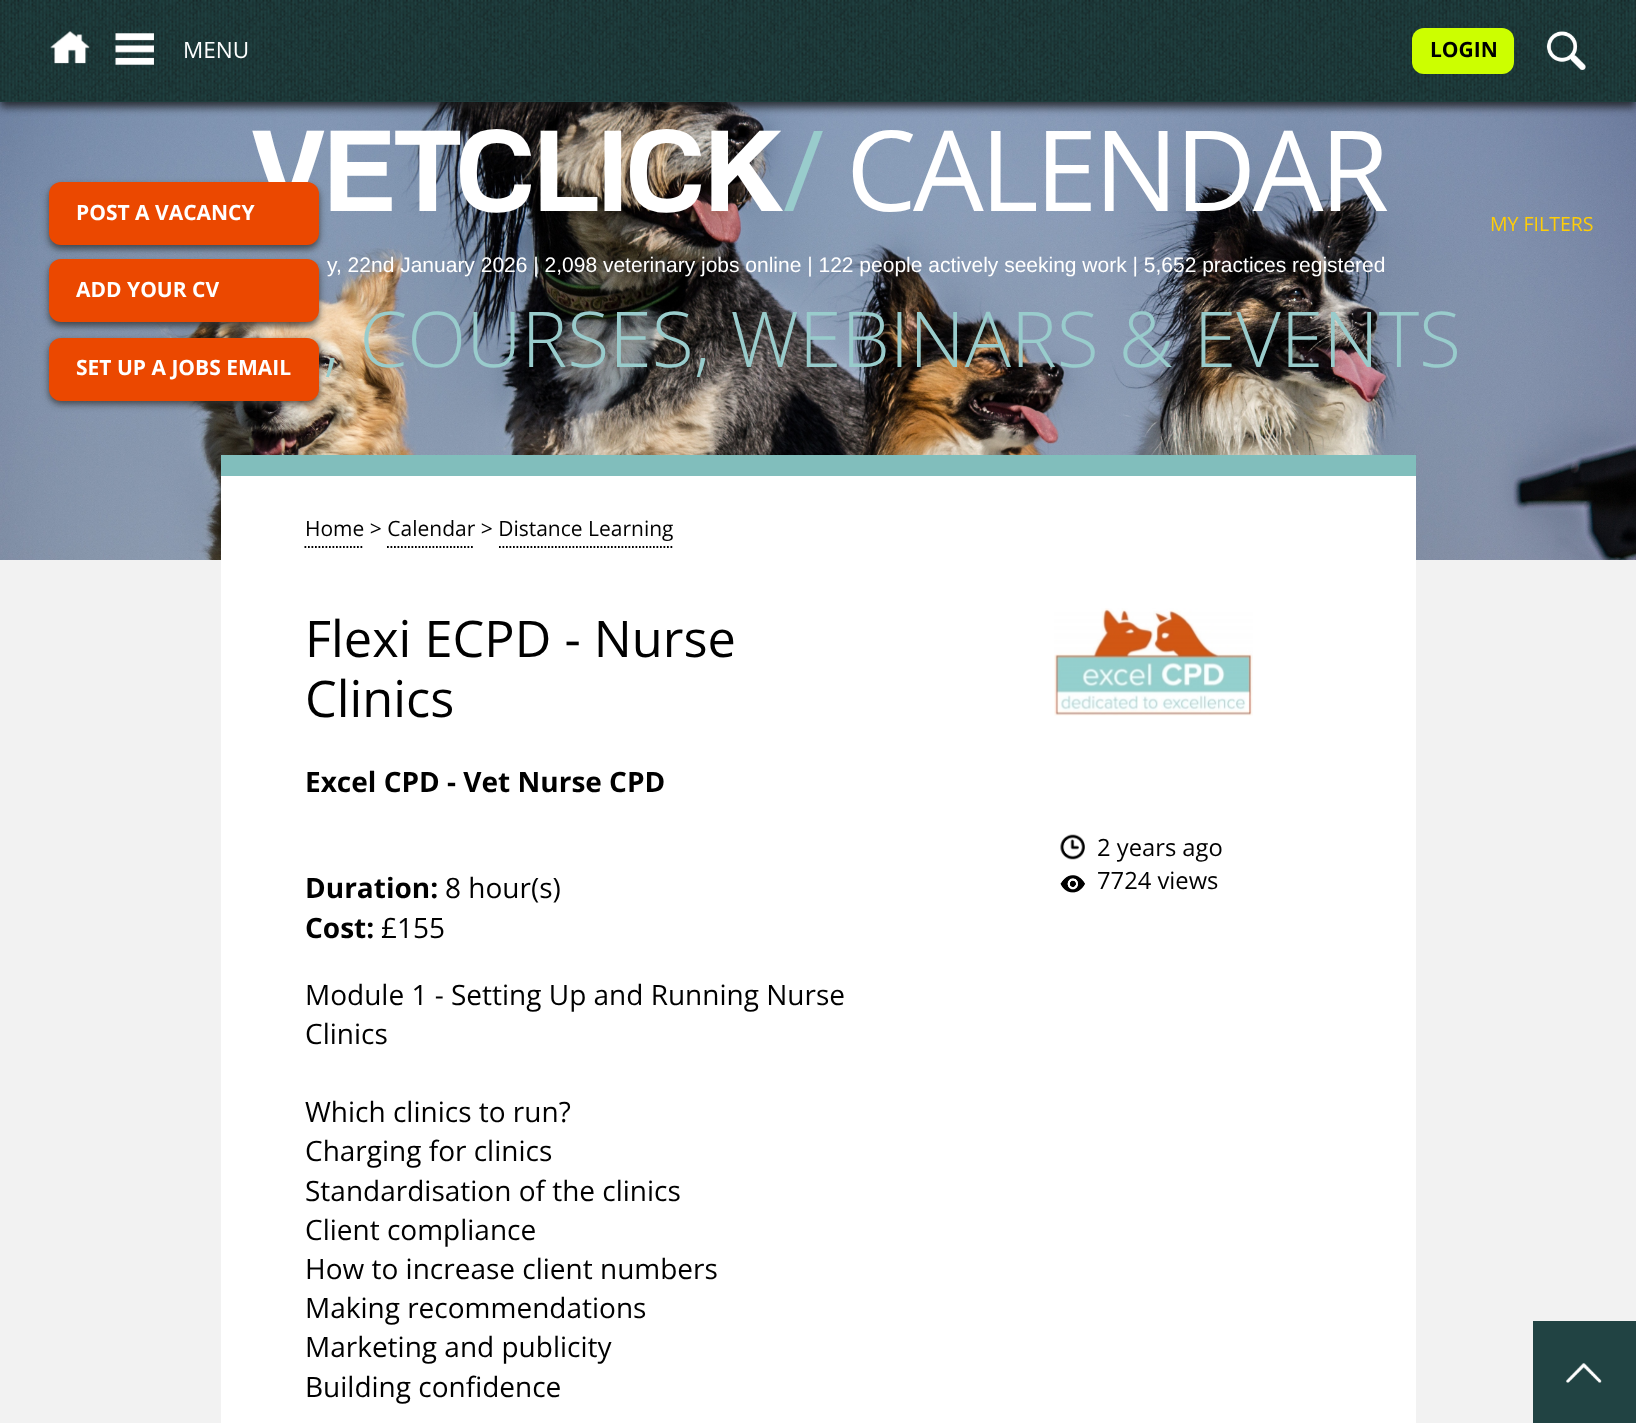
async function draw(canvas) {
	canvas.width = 1636;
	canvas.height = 1423;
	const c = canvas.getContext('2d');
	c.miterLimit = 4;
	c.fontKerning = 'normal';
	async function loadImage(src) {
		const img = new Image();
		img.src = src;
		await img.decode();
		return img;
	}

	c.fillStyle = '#f2f2f2';
	c.fillRect(0, 0, 1636, 1423);
	c.drawImage(await loadImage('img5.png'), 0, 102, 1636, 458);
	c.fillStyle = '#141414cc';
	c.filter = 'blur(4.5px)';
	c.beginPath();
	c.rect(0, 5, 1636, 102);
	c.fill();
	c.filter = 'none';
	c.fillStyle = '#214343';
	c.fillRect(0, 0, 1636, 102);
	c.drawImage(await loadImage('img1.png'), 0, 0, 1636, 102);
	c.drawImage(await loadImage('img2.png'), 50, 31, 40, 33);
	c.drawImage(await loadImage('img3.png'), 115, 33, 39, 32);
	c.font = '22.5px Open Sans';
	c.fillStyle = '#fff';
	c.fillText('MENU', 183, 58);
	c.fillStyle = '#cf0';
	c.beginPath();
	c.roundRect(1412, 28, 102, 46, 12);
	c.fill();
	c.font = 'bold 21px Open Sans';
	c.fillStyle = '#000';
	c.fillText('LOGIN', 1430, 57);
	c.drawImage(await loadImage('img4.png'), 1546, 31, 40, 39);
	c.fillStyle = '#323232cc';
	c.filter = 'blur(3.5px)';
	c.beginPath();
	c.roundRect(49, 186, 270, 63, 12);
	c.fill();
	c.filter = 'none';
	c.letterSpacing = '-3.5px';
	c.font = 'bold 112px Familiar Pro';
	c.fillStyle = '#fff';
	c.fillText('VETCLICK', 251, 211);
	c.fillStyle = '#eb4800';
	c.beginPath();
	c.roundRect(49, 182, 270, 63, 12);
	c.fill();
	c.letterSpacing = '0px';
	c.font = 'bold 21px Open Sans';
	c.fillStyle = '#fff';
	c.fillText('POST A VACANCY', 76, 220);
	c.fillStyle = '#323232cc';
	c.filter = 'blur(3.5px)';
	c.beginPath();
	c.roundRect(49, 263, 270, 63, 12);
	c.fill();
	c.filter = 'none';
	c.fillStyle = '#eb4800';
	c.beginPath();
	c.roundRect(49, 259, 270, 63, 12);
	c.fill();
	c.fillStyle = '#fff';
	c.fillText('ADD YOUR CV', 76, 297);
	c.fillStyle = '#323232cc';
	c.filter = 'blur(3.5px)';
	c.beginPath();
	c.roundRect(49, 341, 270, 63, 12);
	c.fill();
	c.filter = 'none';
	c.fillStyle = '#eb4800';
	c.beginPath();
	c.roundRect(49, 338, 270, 63, 12);
	c.fill();
	c.fillStyle = '#fff';
	c.fillText('SET UP A JOBS EMAIL', 76, 375);
	c.letterSpacing = '-3.5px';
	c.font = '112px Open Sans';
	c.fillStyle = '#9cc';
	c.fillText('/', 783, 211);
	c.fillStyle = '#fff';
	c.fillText('CALENDAR', 846, 211);
	c.letterSpacing = '0px';
	c.font = '21px Liberation Sans';
	c.fillText('y, 22nd January 2026 | 2,098 veterinary jobs online | 122 people actively seeking work | 5,652 practices registered', 327, 272);
	c.font = '300 77px Open Sans';
	c.fillStyle = '#9cc';
	c.fillText(', COURSES, WEBINARS & EVENTS', 323, 367);
	c.font = '19.5px Open Sans';
	c.fillStyle = '#fecd09';
	c.fillText('MY FILTERS', 1490, 231);
	c.fillStyle = '#fff';
	c.fillRect(221, 476, 1195, 947);
	c.fillStyle = '#81bebc';
	c.fillRect(221, 455, 1195, 21);
	c.font = '21px Open Sans';
	c.fillStyle = '#000';
	c.fillText('Home > Calendar > Distance Learning', 305, 536);
	c.beginPath();
	c.moveTo(304.5, 547);
	c.lineTo(364, 547);
	c.strokeStyle = '#000';
	c.lineWidth = 1.8;
	c.setLineDash([1.75, 1.75]);
	c.stroke();
	c.beginPath();
	c.moveTo(387, 547);
	c.lineTo(474, 547);
	c.stroke();
	c.beginPath();
	c.moveTo(499, 547);
	c.lineTo(674, 547);
	c.stroke();
	c.font = '50.5px Open Sans';
	c.fillText('Flexi ECPD - Nurse', 305, 657);
	c.fillText('Clinics', 305, 717);
	c.drawImage(await loadImage('img6.png'), 1054, 608, 199, 108);
	c.font = 'bold 28px Open Sans';
	c.fillText('Excel CPD - Vet Nurse CPD', 305, 792);
	c.fillText('Duration:', 305, 898);
	c.font = '28px Open Sans';
	c.fillText('8 hour(s)', 445, 898);
	c.drawImage(await loadImage('img7.png'), 1060, 834, 25, 26);
	c.font = '23.75px Open Sans';
	c.fillText('2 years ago', 1097, 856);
	c.drawImage(await loadImage('img8.png'), 1060, 875, 25, 18);
	c.fillText('7724 views', 1097, 889);
	c.font = 'bold 28px Open Sans';
	c.fillText('Cost:', 305, 938);
	c.font = '28px Open Sans';
	for (const [text, x, y] of [
		['£155', 381, 938],
		['Module 1 - Setting Up and Running Nurse', 305, 1005],
		['Clinics', 305, 1044],
		['Which clinics to run?', 305, 1122],
		['Charging for clinics', 305, 1161],
		['Standardisation of the clinics', 305, 1201],
		['Client compliance', 305, 1240],
		['How to increase client numbers', 305, 1279],
		['Making recommendations', 305, 1318],
		['Marketing and publicity', 305, 1357],
		['Building confidence', 305, 1397],
	]) {
		c.fillText(text, x, y);
	}
	c.fillStyle = '#214343';
	c.fillRect(1533, 1321, 103, 102);
	c.drawImage(await loadImage('img9.png'), 1566, 1363, 36, 20);
}

draw(document.querySelector('canvas'));
